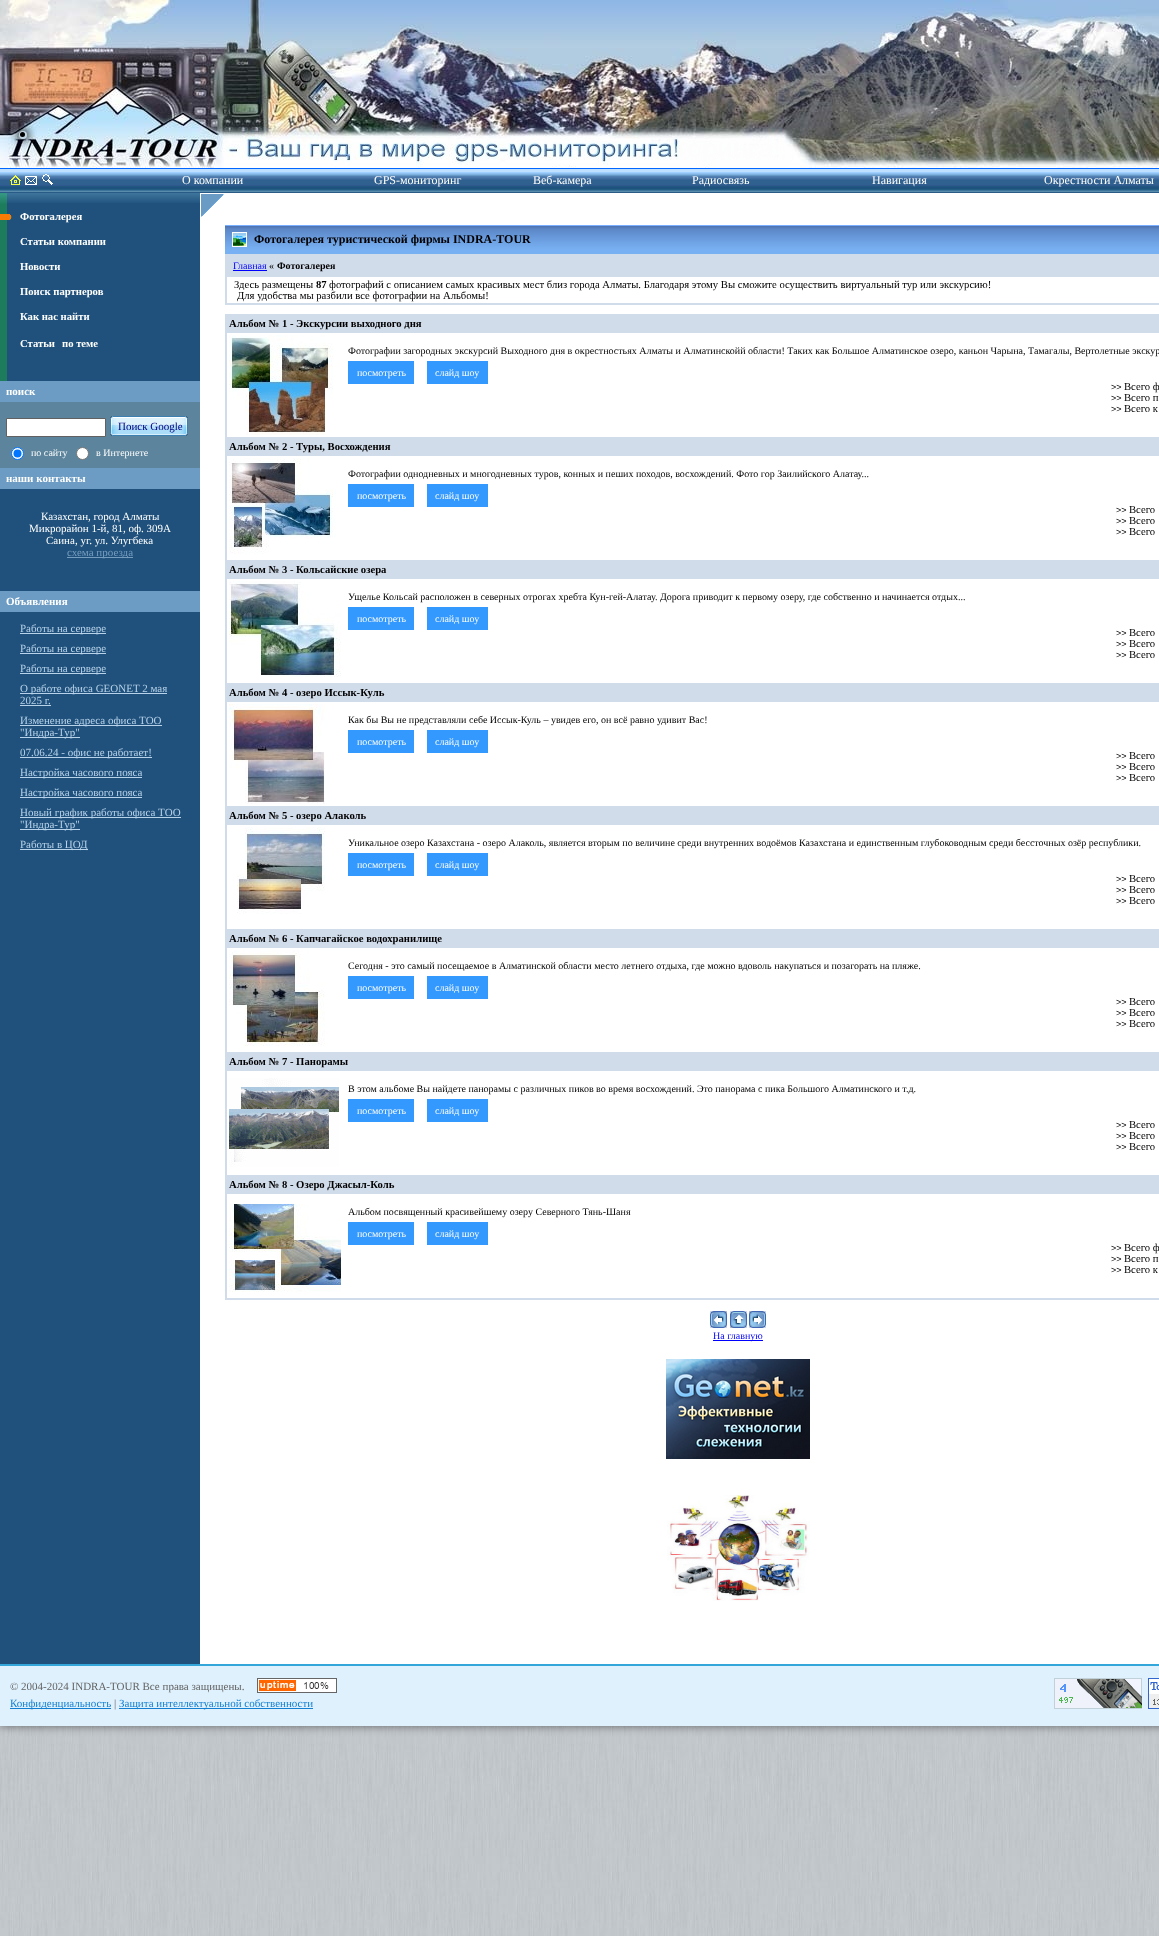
async function draw(canvas) {
	canvas.width = 1159;
	canvas.height = 1936;
	const c = canvas.getContext('2d');
	c.miterLimit = 4;
	c.fontKerning = 'normal';
	async function loadImage(src) {
		const img = new Image();
		img.src = src;
		await img.decode();
		return img;
	}

	c.fillStyle = '#fff';
	c.fillRect(0, 0, 1159, 1936);
	c.drawImage(await loadImage('img1.png'), 0, 1726, 1159, 210);
	c.fillStyle = '#00000080';
	c.filter = 'blur(5px)';
	c.beginPath();
	c.rect(0, 0, 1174, 1726);
	c.fill();
	c.filter = 'none';
	c.drawImage(await loadImage('img2.png'), 0, 0, 1159, 168);
	c.filter = 'blur(5px)';
	c.beginPath();
	c.roundRect(19, 131, 8, 8, 4);
	c.fill();
	c.filter = 'none';
	c.filter = 'blur(5px)';
	c.beginPath();
	c.roundRect(19, 131, 8, 8, 4);
	c.fill();
	c.filter = 'none';
	c.filter = 'blur(5px)';
	c.beginPath();
	c.roundRect(19, 131, 8, 8, 4);
	c.fill();
	c.filter = 'none';
	c.filter = 'blur(5px)';
	c.beginPath();
	c.roundRect(19, 131, 8, 8, 4);
	c.fill();
	c.filter = 'none';
	c.fillStyle = '#c4d7e5';
	c.beginPath();
	c.arc(23, 135, 4, 0, 2 * Math.PI);
	c.fill();
	c.fillStyle = '#000';
	c.beginPath();
	c.arc(22.5, 134.5, 2.5, 0, 2 * Math.PI);
	c.fill();
	c.drawImage(await loadImage('img3.png'), 0, 169, 1159, 24);
	c.fillStyle = '#06f';
	c.fillRect(0, 168, 1159, 1);
	c.drawImage(await loadImage('img4.png'), 10, 175, 11, 10);
	c.drawImage(await loadImage('img5.png'), 25, 176, 12, 9);
	c.drawImage(await loadImage('img6.png'), 42, 174, 11, 11);
	c.font = '12px Liberation Serif';
	c.fillStyle = '#fff';
	for (const [text, x, y] of [
		['О компании', 182, 184],
		['GPS-мониторинг', 374, 184],
		['Веб-камера', 533, 184],
		['Радиосвязь', 692, 184],
		['Навигация', 872, 184],
		['Окрестности Алматы', 1044, 184],
	]) {
		c.fillText(text, x, y);
	}
	c.fillRect(200, 193, 959, 1471);
	c.drawImage(await loadImage('img7.png'), 201, 194, 23, 23);
	c.drawImage(await loadImage('img8.png'), 7, 193, 193, 10);
	c.fillStyle = '#1f517c';
	c.fillRect(0, 203, 200, 1461);
	c.drawImage(await loadImage('img9.png'), 0, 193, 7, 11);
	c.fillStyle = '#1c7c5c';
	c.fillRect(0, 204, 7, 177);
	c.font = 'bold 10.67px Liberation Serif';
	c.fillStyle = '#fff';
	for (const [text, x, y] of [
		['Фотогалерея', 20, 220],
		['Статьи компании', 20, 245],
		['Новости', 20, 270],
		['Поиск партнеров', 20, 295],
		['Как нас найти', 20, 320],
		['Статьи', 20, 347],
		['по теме', 62, 347],
	]) {
		c.fillText(text, x, y);
	}
	c.fillStyle = '#6c9cc4';
	c.fillRect(0, 381, 200, 21);
	c.font = 'bold 11px Liberation Serif';
	c.fillStyle = '#fff';
	c.fillText('поиск', 6, 395);
	c.fillStyle = '#5c849c';
	c.fillRect(0, 402, 200, 66);
	c.fillStyle = '#fff';
	c.beginPath();
	c.rect(6.5, 418.5, 99, 18);
	c.fill();
	c.strokeStyle = '#616161';
	c.stroke();
	c.drawImage(await loadImage('img10.png'), 110, 416, 78, 20);
	c.font = '11px Liberation Serif';
	c.fillStyle = '#000080';
	c.fillText('Поиск Google', 118, 430);
	c.fillStyle = '#fff';
	c.beginPath();
	c.arc(17.5, 453.5, 6, 0, 2 * Math.PI);
	c.fill();
	c.strokeStyle = '#0075ff';
	c.stroke();
	c.fillStyle = '#0075ff';
	c.beginPath();
	c.arc(17.5, 453.5, 4, 0, 2 * Math.PI);
	c.fill();
	c.font = '10px Liberation Serif';
	c.fillStyle = '#fff';
	c.fillText('по сайту', 31, 456);
	c.beginPath();
	c.arc(82.5, 453.5, 6, 0, 2 * Math.PI);
	c.fill();
	c.strokeStyle = '#767676';
	c.stroke();
	c.fillText('в Интернете', 96, 456);
	c.fillStyle = '#6c9cc4';
	c.fillRect(0, 468, 200, 21);
	c.font = 'bold 11px Liberation Serif';
	c.fillStyle = '#fff';
	c.fillText('наши контакты', 6, 482);
	c.font = '11px Liberation Serif';
	for (const [text, x, y] of [
		['Казахстан, город Алматы', 41, 520],
		['Микрорайон 1-й, 81, оф. 309А', 29, 532],
		['Саина, уг. ул. Улугбека', 46, 544],
	]) {
		c.fillText(text, x, y);
	}
	c.fillStyle = '#769cbe';
	c.fillRect(67, 557, 66, 1);
	c.fillText('схема проезда', 67, 556);
	c.fillStyle = '#6c9cc4';
	c.fillRect(0, 591, 200, 21);
	c.font = 'bold 11px Liberation Serif';
	c.fillStyle = '#fff';
	c.fillText('Объявления', 6, 605);
	c.fillStyle = '#b8d2e9';
	c.fillRect(20, 633, 86, 1);
	c.font = '11px Liberation Serif';
	c.fillText('Работы на сервере', 20, 632);
	c.fillRect(20, 653, 86, 1);
	c.fillText('Работы на сервере', 20, 652);
	c.fillRect(20, 673, 86, 1);
	c.fillText('Работы на сервере', 20, 672);
	c.fillRect(20, 693, 147, 1);
	c.fillText('О работе офиса GEONET 2 мая', 20, 692);
	c.fillText('2025 г.', 20, 704);
	c.fillRect(20, 705, 31, 1);
	c.fillRect(20, 725, 142, 1);
	c.fillText('Изменение адреса офиса ТОО', 20, 724);
	c.fillRect(20, 737, 60, 1);
	c.fillText('"Индра-Тур"', 20, 736);
	c.fillRect(20, 757, 132, 1);
	c.fillText('07.06.24 - офис не работает!', 20, 756);
	c.fillRect(20, 777, 122, 1);
	c.fillText('Настройка часового пояса', 20, 776);
	c.fillRect(20, 797, 122, 1);
	c.fillText('Настройка часового пояса', 20, 796);
	c.fillRect(20, 817, 161, 1);
	c.fillText('Новый график работы офиса ТОО', 20, 816);
	c.fillRect(20, 829, 60, 1);
	c.fillText('"Индра-Тур"', 20, 828);
	c.fillRect(20, 849, 68, 1);
	c.fillText('Работы в ЦОД', 20, 848);
	c.drawImage(await loadImage('img11.png'), 0, 214, 12, 6);
	c.drawImage(await loadImage('img12.png'), 225, 225, 934, 29);
	c.drawImage(await loadImage('img13.png'), 232, 232, 15, 15);
	c.font = 'bold 12px Liberation Serif';
	c.fillStyle = '#000';
	c.fillText('Фотогалерея туристической фирмы INDRA-TOUR', 254, 243);
	c.fillStyle = '#d1dceb';
	c.fillRect(225, 254, 934, 51);
	c.font = '10px Liberation Serif';
	c.fillStyle = '#00f';
	c.fillText('Главная', 233, 269);
	c.fillRect(233, 270, 34, 1);
	c.fillStyle = '#000';
	c.fillText('«', 269, 269);
	c.font = 'bold 10px Liberation Serif';
	c.fillText('Фотогалерея', 277, 269);
	c.fillStyle = '#fff';
	c.fillRect(227, 277, 932, 26);
	c.font = '10.67px Liberation Serif';
	c.fillStyle = '#000';
	c.fillText('Здесь размещены', 234, 288);
	c.font = 'bold 10.67px Liberation Serif';
	c.fillText('87', 316, 288);
	c.font = '10.67px Liberation Serif';
	c.fillText('фотографий с описанием самых красивых мест близ города Алматы. Благодаря этому Вы сможите осуществить виртуальный тур или экскурсию!', 329, 288);
	c.fillText('Для удобства мы разбили все фотографии на Альбомы!', 237, 299);
	c.fillStyle = '#d1dceb';
	c.fillRect(225, 314, 934, 986);
	c.font = 'bold 10.67px Liberation Serif';
	c.fillStyle = '#000';
	c.fillText('Альбом № 1 - Экскурсии выходного дня', 229, 327);
	c.fillStyle = '#fff';
	c.fillRect(227, 333, 932, 104);
	c.drawImage(await loadImage('img14.png'), 229, 335, 104, 100);
	c.font = '10px Liberation Serif';
	c.fillStyle = '#000';
	c.fillText('Фотографии загородных экскурсий Выходного дня в окрестностьях Алматы и Алматинскойй области! Таких как Большое Алматинское озеро, каньон Чарына, Тамагалы, Вертолетные экскур', 348, 354);
	c.fillStyle = '#39f';
	c.fillRect(348, 361, 66, 23);
	c.fillStyle = '#fff';
	c.fillText('посмотреть', 357, 376);
	c.fillStyle = '#39f';
	c.fillRect(427, 361, 61, 23);
	c.fillStyle = '#fff';
	c.fillText('слайд шоу', 435, 376);
	c.font = '9px Liberation Sans';
	c.fillStyle = '#000';
	c.fillText('>>', 1111, 390);
	c.font = '10.67px Liberation Serif';
	c.fillText('Всего ф', 1124, 390);
	c.font = '9px Liberation Sans';
	c.fillText('>>', 1111, 401);
	c.font = '10.67px Liberation Serif';
	c.fillText('Всего п', 1124, 401);
	c.font = '9px Liberation Sans';
	c.fillText('>>', 1111, 412);
	c.font = '10.67px Liberation Serif';
	c.fillText('Всего к', 1124, 412);
	c.font = 'bold 10.67px Liberation Serif';
	c.fillText('Альбом № 2 - Туры, Восхождения', 229, 450);
	c.fillStyle = '#fff';
	c.fillRect(227, 456, 932, 104);
	c.drawImage(await loadImage('img15.png'), 229, 458, 107, 96);
	c.font = '10px Liberation Serif';
	c.fillStyle = '#000';
	c.fillText('Фотографии однодневных и многодневных туров, конных и пеших походов, восхождений. Фото гор Заилийского Алатау...', 348, 477);
	c.fillStyle = '#39f';
	c.fillRect(348, 484, 66, 23);
	c.fillStyle = '#fff';
	c.fillText('посмотреть', 357, 499);
	c.fillStyle = '#39f';
	c.fillRect(427, 484, 61, 23);
	c.fillStyle = '#fff';
	c.fillText('слайд шоу', 435, 499);
	c.font = '9px Liberation Sans';
	c.fillStyle = '#000';
	c.fillText('>>', 1116, 513);
	c.font = '10.67px Liberation Serif';
	c.fillText('Всего', 1129, 513);
	c.font = '9px Liberation Sans';
	c.fillText('>>', 1116, 524);
	c.font = '10.67px Liberation Serif';
	c.fillText('Всего', 1129, 524);
	c.font = '9px Liberation Sans';
	c.fillText('>>', 1116, 535);
	c.font = '10.67px Liberation Serif';
	c.fillText('Всего', 1129, 535);
	c.font = 'bold 10.67px Liberation Serif';
	c.fillText('Альбом № 3 - Кольсайские озера', 229, 573);
	c.fillStyle = '#fff';
	c.fillRect(227, 579, 932, 104);
	c.drawImage(await loadImage('img16.png'), 229, 581, 112, 96);
	c.font = '10px Liberation Serif';
	c.fillStyle = '#000';
	c.fillText('Ущелье Кольсай расположен в северных отрогах хребта Кун-гей-Алатау. Дорога приводит к первому озеру, где собственно и начинается отдых...', 348, 600);
	c.fillStyle = '#39f';
	c.fillRect(348, 607, 66, 23);
	c.fillStyle = '#fff';
	c.fillText('посмотреть', 357, 622);
	c.fillStyle = '#39f';
	c.fillRect(427, 607, 61, 23);
	c.fillStyle = '#fff';
	c.fillText('слайд шоу', 435, 622);
	c.font = '9px Liberation Sans';
	c.fillStyle = '#000';
	c.fillText('>>', 1116, 636);
	c.font = '10.67px Liberation Serif';
	c.fillText('Всего', 1129, 636);
	c.font = '9px Liberation Sans';
	c.fillText('>>', 1116, 647);
	c.font = '10.67px Liberation Serif';
	c.fillText('Всего', 1129, 647);
	c.font = '9px Liberation Sans';
	c.fillText('>>', 1116, 658);
	c.font = '10.67px Liberation Serif';
	c.fillText('Всего', 1129, 658);
	c.font = 'bold 10.67px Liberation Serif';
	c.fillText('Альбом № 4 - озеро Иссык-Куль', 229, 696);
	c.fillStyle = '#fff';
	c.fillRect(227, 702, 932, 104);
	c.drawImage(await loadImage('img17.png'), 229, 704, 96, 100);
	c.font = '10px Liberation Serif';
	c.fillStyle = '#000';
	c.fillText('Как бы Вы не представляли себе Иссык-Куль – увидев его, он всё равно удивит Вас!', 348, 723);
	c.fillStyle = '#39f';
	c.fillRect(348, 730, 66, 23);
	c.fillStyle = '#fff';
	c.fillText('посмотреть', 357, 745);
	c.fillStyle = '#39f';
	c.fillRect(427, 730, 61, 23);
	c.fillStyle = '#fff';
	c.fillText('слайд шоу', 435, 745);
	c.font = '9px Liberation Sans';
	c.fillStyle = '#000';
	c.fillText('>>', 1116, 759);
	c.font = '10.67px Liberation Serif';
	c.fillText('Всего', 1129, 759);
	c.font = '9px Liberation Sans';
	c.fillText('>>', 1116, 770);
	c.font = '10.67px Liberation Serif';
	c.fillText('Всего', 1129, 770);
	c.font = '9px Liberation Sans';
	c.fillText('>>', 1116, 781);
	c.font = '10.67px Liberation Serif';
	c.fillText('Всего', 1129, 781);
	c.font = 'bold 10.67px Liberation Serif';
	c.fillText('Альбом № 5 - озеро Алаколь', 229, 819);
	c.fillStyle = '#fff';
	c.fillRect(227, 825, 932, 104);
	c.drawImage(await loadImage('img18.png'), 237, 827, 88, 87);
	c.font = '10px Liberation Serif';
	c.fillStyle = '#000';
	c.fillText('Уникальное озеро Казахстана - озеро Алаколь, является вторым по величине среди внутренних водоёмов Казахстана и единственным глубоководным среди бессточных озёр республики.', 348, 846);
	c.fillStyle = '#39f';
	c.fillRect(348, 853, 66, 23);
	c.fillStyle = '#fff';
	c.fillText('посмотреть', 357, 868);
	c.fillStyle = '#39f';
	c.fillRect(427, 853, 61, 23);
	c.fillStyle = '#fff';
	c.fillText('слайд шоу', 435, 868);
	c.font = '9px Liberation Sans';
	c.fillStyle = '#000';
	c.fillText('>>', 1116, 882);
	c.font = '10.67px Liberation Serif';
	c.fillText('Всего', 1129, 882);
	c.font = '9px Liberation Sans';
	c.fillText('>>', 1116, 893);
	c.font = '10.67px Liberation Serif';
	c.fillText('Всего', 1129, 893);
	c.font = '9px Liberation Sans';
	c.fillText('>>', 1116, 904);
	c.font = '10.67px Liberation Serif';
	c.fillText('Всего', 1129, 904);
	c.font = 'bold 10.67px Liberation Serif';
	c.fillText('Альбом № 6 - Капчагайское водохранилище', 229, 942);
	c.fillStyle = '#fff';
	c.fillRect(227, 948, 932, 104);
	c.drawImage(await loadImage('img19.png'), 229, 950, 96, 96);
	c.font = '10px Liberation Serif';
	c.fillStyle = '#000';
	c.fillText('Сегодня - это самый посещаемое в Алматинской области место летнего отдыха, где можно вдоволь накупаться и позагорать на пляже.', 348, 969);
	c.fillStyle = '#39f';
	c.fillRect(348, 976, 66, 23);
	c.fillStyle = '#fff';
	c.fillText('посмотреть', 357, 991);
	c.fillStyle = '#39f';
	c.fillRect(427, 976, 61, 23);
	c.fillStyle = '#fff';
	c.fillText('слайд шоу', 435, 991);
	c.font = '9px Liberation Sans';
	c.fillStyle = '#000';
	c.fillText('>>', 1116, 1005);
	c.font = '10.67px Liberation Serif';
	c.fillText('Всего', 1129, 1005);
	c.font = '9px Liberation Sans';
	c.fillText('>>', 1116, 1016);
	c.font = '10.67px Liberation Serif';
	c.fillText('Всего', 1129, 1016);
	c.font = '9px Liberation Sans';
	c.fillText('>>', 1116, 1027);
	c.font = '10.67px Liberation Serif';
	c.fillText('Всего', 1129, 1027);
	c.font = 'bold 10.67px Liberation Serif';
	c.fillText('Альбом № 7 - Панорамы', 229, 1065);
	c.fillStyle = '#fff';
	c.fillRect(227, 1071, 932, 104);
	c.drawImage(await loadImage('img20.png'), 229, 1078, 110, 89);
	c.font = '10px Liberation Serif';
	c.fillStyle = '#000';
	c.fillText('В этом альбоме Вы найдете панорамы с различных пиков во время восхождений. Это панорама с пика Большого Алматинского и т.д.', 348, 1092);
	c.fillStyle = '#39f';
	c.fillRect(348, 1099, 66, 23);
	c.fillStyle = '#fff';
	c.fillText('посмотреть', 357, 1114);
	c.fillStyle = '#39f';
	c.fillRect(427, 1099, 61, 23);
	c.fillStyle = '#fff';
	c.fillText('слайд шоу', 435, 1114);
	c.font = '9px Liberation Sans';
	c.fillStyle = '#000';
	c.fillText('>>', 1116, 1128);
	c.font = '10.67px Liberation Serif';
	c.fillText('Всего', 1129, 1128);
	c.font = '9px Liberation Sans';
	c.fillText('>>', 1116, 1139);
	c.font = '10.67px Liberation Serif';
	c.fillText('Всего', 1129, 1139);
	c.font = '9px Liberation Sans';
	c.fillText('>>', 1116, 1150);
	c.font = '10.67px Liberation Serif';
	c.fillText('Всего', 1129, 1150);
	c.font = 'bold 10.67px Liberation Serif';
	c.fillText('Альбом № 8 - Озеро Джасыл-Коль', 229, 1188);
	c.fillStyle = '#fff';
	c.fillRect(227, 1194, 932, 104);
	c.drawImage(await loadImage('img21.png'), 229, 1204, 113, 88);
	c.font = '10px Liberation Serif';
	c.fillStyle = '#000';
	c.fillText('Альбом посвященный красивейшему озеру Северного Тянь-Шаня', 348, 1215);
	c.fillStyle = '#39f';
	c.fillRect(348, 1222, 66, 23);
	c.fillStyle = '#fff';
	c.fillText('посмотреть', 357, 1237);
	c.fillStyle = '#39f';
	c.fillRect(427, 1222, 61, 23);
	c.fillStyle = '#fff';
	c.fillText('слайд шоу', 435, 1237);
	c.font = '9px Liberation Sans';
	c.fillStyle = '#000';
	c.fillText('>>', 1111, 1251);
	c.font = '10.67px Liberation Serif';
	c.fillText('Всего ф', 1124, 1251);
	c.font = '9px Liberation Sans';
	c.fillText('>>', 1111, 1262);
	c.font = '10.67px Liberation Serif';
	c.fillText('Всего п', 1124, 1262);
	c.font = '9px Liberation Sans';
	c.fillText('>>', 1111, 1273);
	c.font = '10.67px Liberation Serif';
	c.fillText('Всего к', 1124, 1273);
	c.drawImage(await loadImage('img22.png'), 710, 1311, 17, 17);
	c.drawImage(await loadImage('img23.png'), 730, 1311, 17, 17);
	c.drawImage(await loadImage('img24.png'), 749, 1311, 17, 17);
	c.fillStyle = '#00f';
	c.fillRect(713, 1340, 50, 1);
	c.font = '10px Liberation Serif';
	c.fillText('На главную', 713, 1339);
	c.drawImage(await loadImage('img25.png'), 666, 1359, 144, 100);
	c.drawImage(await loadImage('img26.png'), 667, 1495, 143, 106);
	c.fillStyle = '#35a6da';
	c.fillRect(0, 1664, 1159, 2);
	c.fillStyle = '#dff1fd';
	c.fillRect(0, 1666, 1159, 60);
	c.font = '11px Liberation Serif';
	c.fillStyle = '#636363';
	c.fillText('© 2004-2024 INDRA-TOUR Все права защищены.', 10, 1690);
	c.drawImage(await loadImage('img27.png'), 257, 1678, 80, 15);
	c.fillStyle = '#137fd1';
	c.fillRect(10, 1708, 101, 1);
	c.fillText('Конфиденциальность', 10, 1707);
	c.fillStyle = '#636363';
	c.fillText('|', 114, 1707);
	c.fillStyle = '#137fd1';
	c.fillRect(119, 1708, 194, 1);
	c.fillText('Защита интеллектуальной собственности', 119, 1707);
	c.drawImage(await loadImage('img28.png'), 1054, 1678, 88, 31);
	c.drawImage(await loadImage('img29.png'), 1148, 1678, 11, 31);
}

draw(document.querySelector('canvas'));
